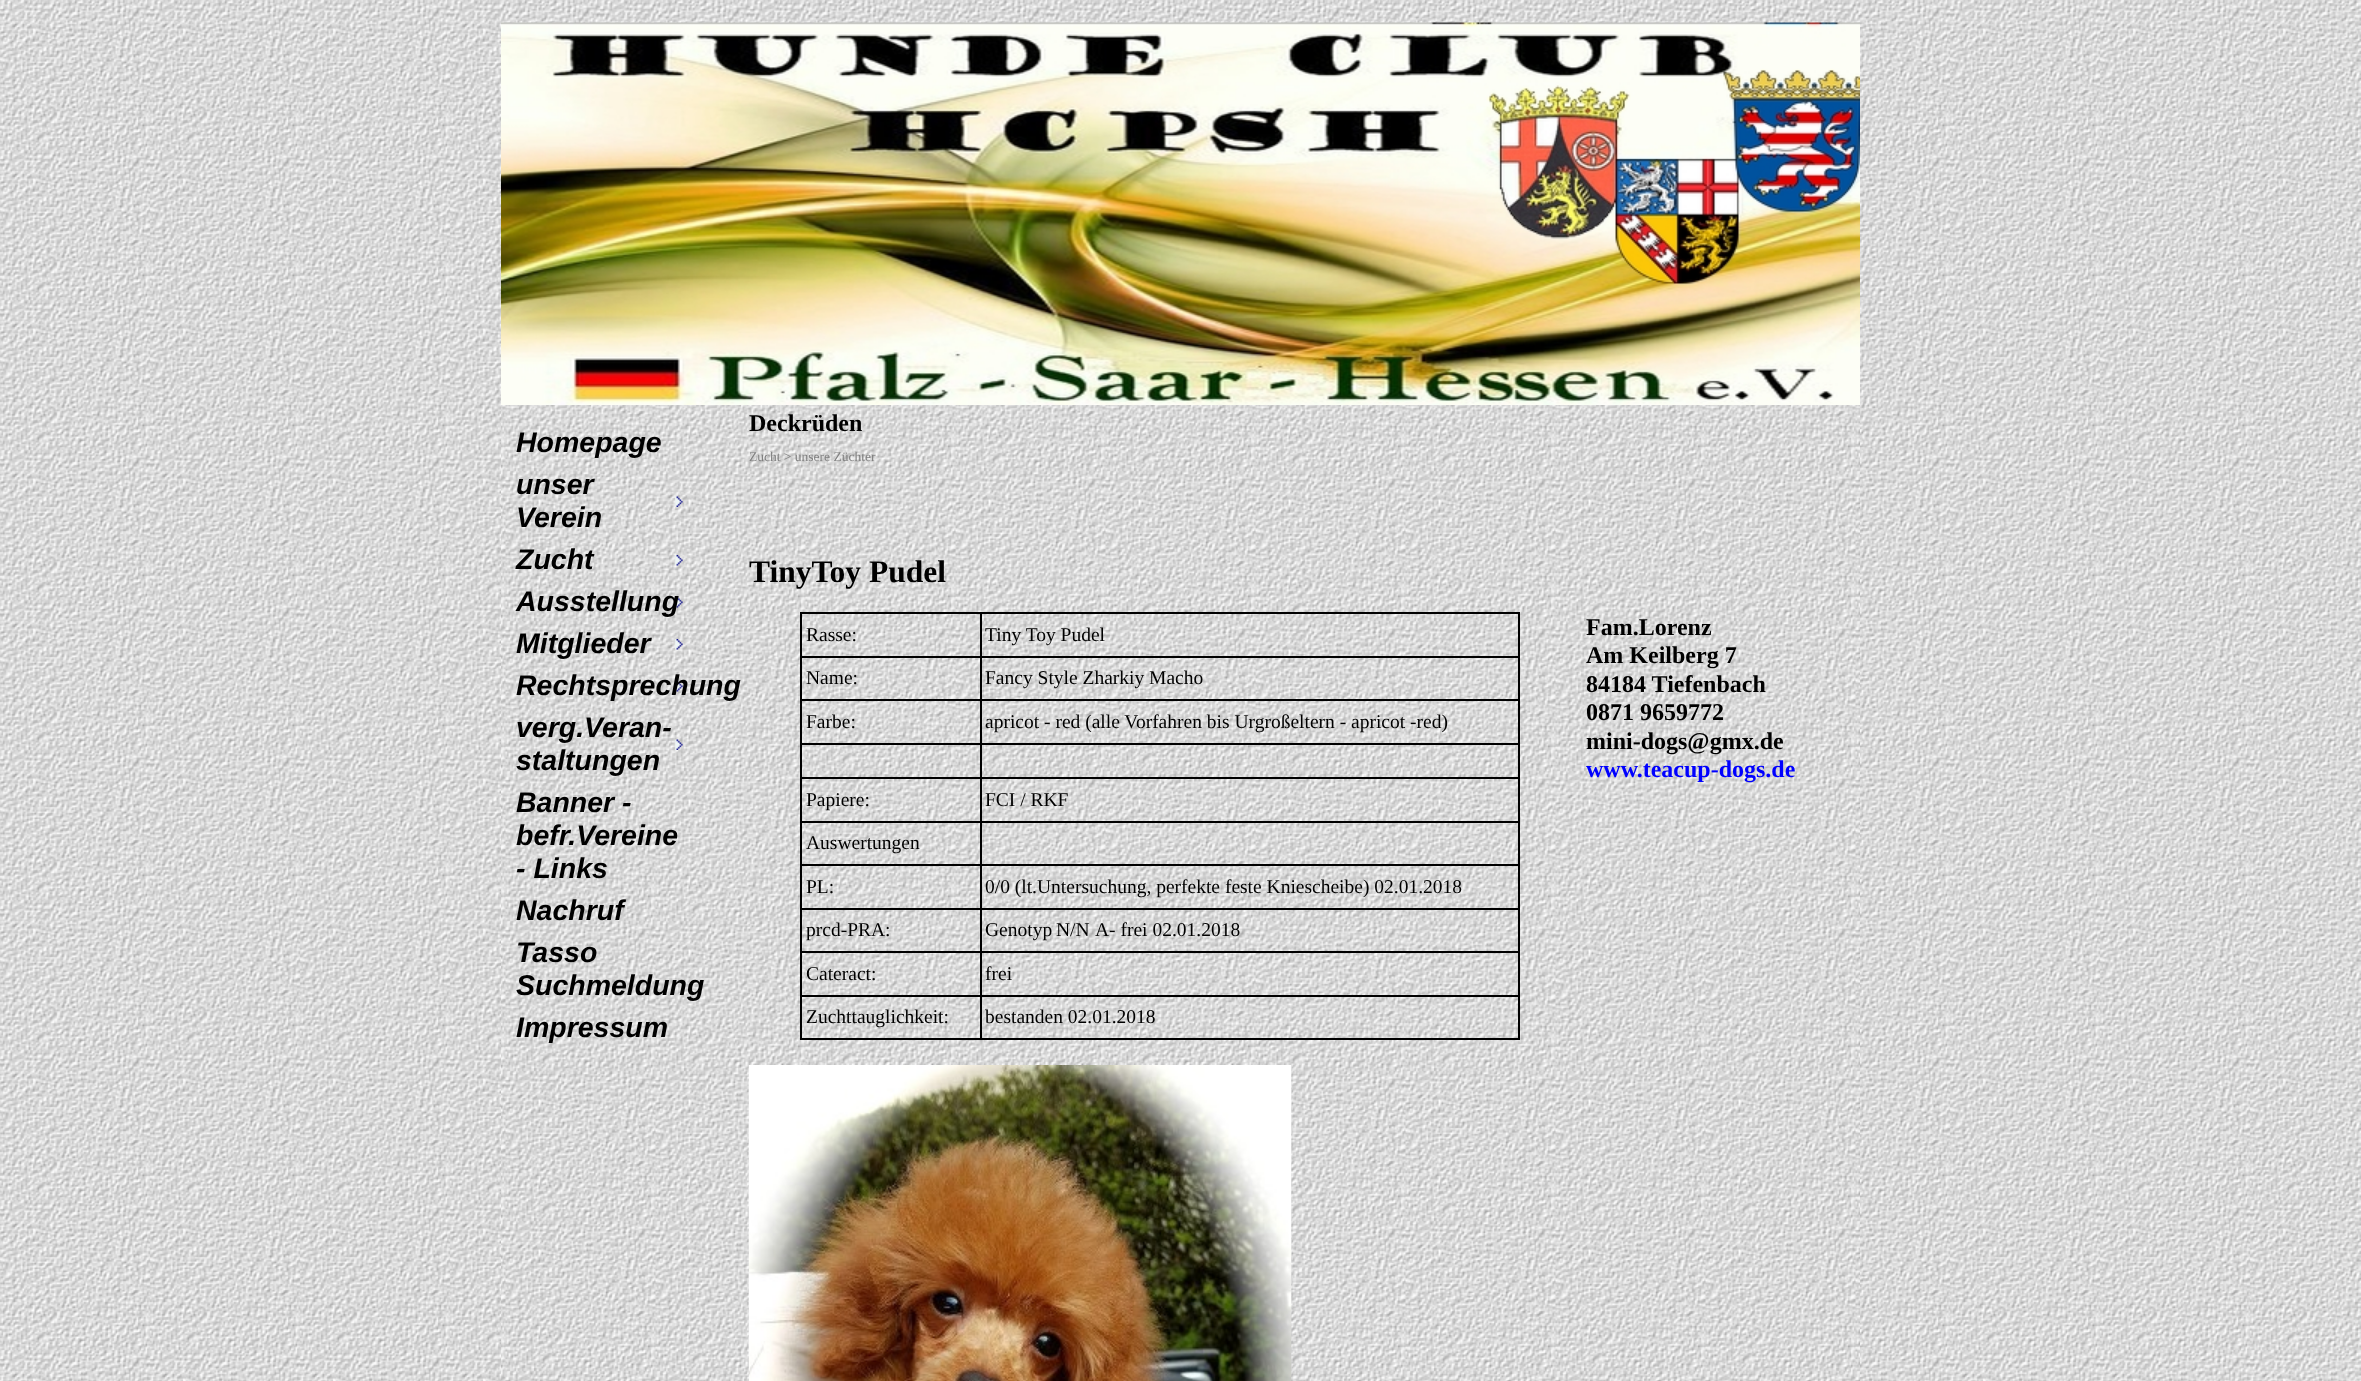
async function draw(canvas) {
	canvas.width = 2361;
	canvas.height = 1381;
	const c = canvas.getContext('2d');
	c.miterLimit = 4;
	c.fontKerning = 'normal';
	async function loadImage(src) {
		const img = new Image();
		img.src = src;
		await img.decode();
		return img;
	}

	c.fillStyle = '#fff';
	c.fillRect(0, 0, 2361, 1381);
	c.drawImage(await loadImage('img1.png'), 0, 0, 2361, 1381);
	c.drawImage(await loadImage('img2.png'), 501, 22, 1359, 383);
	c.drawImage(await loadImage('img3.png'), 501, 405, 1359, 976);
	c.font = 'italic bold 28.5px Liberation Sans';
	c.fillStyle = '#000';
	c.fillText('Homepage', 516, 452);
	c.drawImage(await loadImage('img4.png'), 674, 496, 9, 11);
	c.fillText('unser', 516, 494);
	c.fillText('Verein', 516, 527);
	c.drawImage(await loadImage('img5.png'), 674, 555, 9, 11);
	c.fillText('Zucht', 516, 569);
	c.drawImage(await loadImage('img6.png'), 674, 597, 9, 11);
	c.fillText('Ausstellung', 516, 611);
	c.drawImage(await loadImage('img7.png'), 674, 639, 9, 11);
	c.fillText('Mitglieder', 516, 653);
	c.drawImage(await loadImage('img8.png'), 674, 681, 9, 11);
	c.fillText('Rechtsprechung', 516, 695);
	c.drawImage(await loadImage('img9.png'), 674, 739, 9, 11);
	for (const [text, x, y] of [
		['verg.Veran-', 516, 737],
		['staltungen', 516, 770],
		['Banner -', 516, 812],
		['befr.Vereine', 516, 845],
		['- Links', 516, 878],
		['Nachruf', 516, 920],
		['Tasso', 516, 962],
		['Suchmeldung', 516, 995],
		['Impressum', 516, 1037],
	]) {
		c.fillText(text, x, y);
	}
	c.font = 'bold 24px Liberation Serif';
	c.fillText('Deckrüden', 749, 431);
	c.font = '13.5px Liberation Serif';
	c.fillStyle = '#808080';
	c.fillText('Zucht > unsere Züchter', 749, 461);
	c.font = 'bold 31.5px Liberation Serif';
	c.fillStyle = '#000';
	c.fillText('TinyToy Pudel', 749, 582);
	for (const [x, y, w, h, color] of [
		[980, 612, 540, 2, '#000'],
		[980, 656, 540, 2, '#000'],
		[980, 699, 540, 2, '#000'],
		[980, 743, 540, 2, '#000'],
		[980, 777, 540, 2, '#000'],
		[980, 821, 540, 2, '#000'],
		[980, 864, 540, 2, '#000'],
		[980, 908, 540, 2, '#000'],
		[980, 951, 540, 2, '#000'],
		[980, 995, 540, 2, '#000'],
		[1518, 995, 2, 45, '#000'],
		[980, 1038, 540, 2, '#000'],
		[980, 995, 2, 45, '#000'],
		[800, 995, 181, 2, '#000'],
		[980, 951, 2, 45, '#000'],
		[800, 951, 181, 2, '#000'],
		[980, 908, 2, 45, '#000'],
		[800, 908, 181, 2, '#000'],
		[980, 864, 2, 45, '#000'],
		[800, 864, 181, 2, '#000'],
		[980, 821, 2, 45, '#000'],
		[800, 821, 181, 2, '#000'],
		[980, 777, 2, 45, '#000'],
		[800, 777, 181, 2, '#000'],
		[980, 743, 2, 36, '#000'],
		[800, 743, 181, 2, '#000'],
		[980, 699, 2, 45, '#000'],
		[800, 699, 181, 2, '#000'],
		[980, 656, 2, 45, '#000'],
		[800, 656, 181, 2, '#000'],
		[980, 612, 2, 45, '#000'],
		[800, 612, 181, 2, '#000'],
		[800, 1038, 181, 2, '#000'],
		[800, 995, 2, 45, '#000'],
		[800, 951, 2, 45, '#000'],
		[800, 908, 2, 45, '#000'],
		[800, 864, 2, 45, '#000'],
		[800, 821, 2, 45, '#000'],
		[800, 777, 2, 45, '#000'],
		[800, 743, 2, 36, '#000'],
		[800, 699, 2, 45, '#000'],
		[800, 656, 2, 45, '#000'],
		[800, 612, 2, 45, '#000'],
	]) {
		c.fillStyle = color;
		c.fillRect(x, y, w, h);
	}
	c.font = '19.5px Liberation Serif';
	c.fillText('Rasse:', 806, 641);
	for (const [x, y, w, h, color] of [
		[1518, 951, 2, 45, '#000'],
		[1518, 908, 2, 45, '#000'],
		[1518, 864, 2, 45, '#000'],
		[1518, 821, 2, 45, '#000'],
		[1518, 777, 2, 45, '#000'],
		[1518, 743, 2, 36, '#000'],
		[1518, 699, 2, 45, '#000'],
		[1518, 656, 2, 45, '#000'],
		[1518, 612, 2, 45, '#000'],
	]) {
		c.fillStyle = color;
		c.fillRect(x, y, w, h);
	}
	for (const [text, x, y] of [
		['Tiny Toy Pudel', 985, 641],
		['Name:', 806, 684],
		['Fancy Style Zharkiy Macho', 985, 684],
		['Farbe:', 806, 728],
		['apricot - red (alle Vorfahren bis Urgroßeltern - apricot -red)', 985, 728],
		['Papiere:', 806, 806],
		['FCI / RKF', 985, 806],
		['Auswertungen', 806, 849],
		['PL:', 806, 893],
		['0/0 (lt.Untersuchung, perfekte feste Kniescheibe) 02.01.2018', 985, 893],
		['prcd-PRA:', 806, 936],
	]) {
		c.fillText(text, x, y);
	}
	c.wordSpacing = '-1px';
	c.fillText('Genotyp N/N', 985, 936);
	c.wordSpacing = '0px';
	for (const [text, x, y] of [
		['A- frei 02.01.2018', 1095, 936],
		['Cateract:', 806, 980],
		['frei', 985, 980],
		['Zuchttauglichkeit:', 806, 1023],
		['bestanden 02.01.2018', 985, 1023],
	]) {
		c.fillText(text, x, y);
	}
	c.font = 'bold 24px Liberation Serif';
	for (const [text, x, y] of [
		['Fam.Lorenz', 1586, 635],
		['Am Keilberg 7', 1586, 663],
		['84184 Tiefenbach', 1586, 692],
		['0871 9659772', 1586, 720],
		['mini-dogs@gmx.de', 1586, 749],
	]) {
		c.fillText(text, x, y);
	}
	c.fillStyle = '#00f';
	c.fillText('www.teacup-dogs.de', 1586, 777);
	c.drawImage(await loadImage('img10.png'), 748, 1065, 544, 316);
}

draw(document.querySelector('canvas'));
